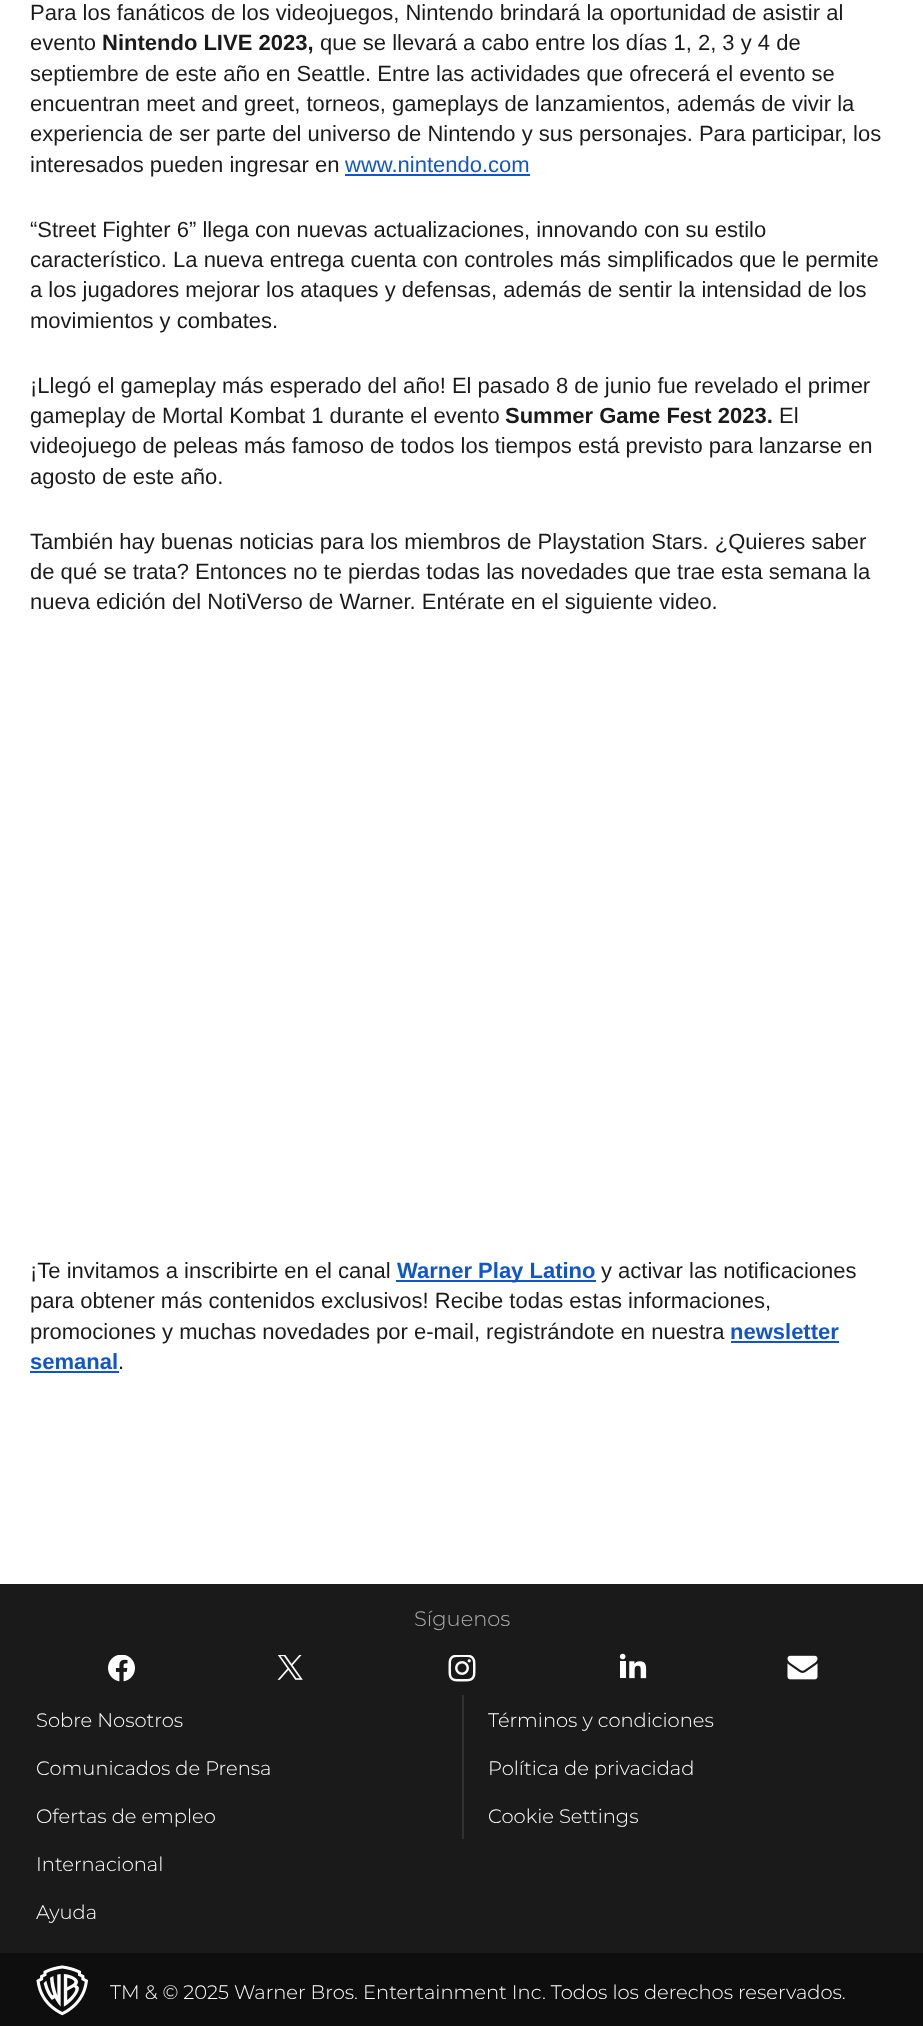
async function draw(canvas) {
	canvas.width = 923;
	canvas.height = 2026;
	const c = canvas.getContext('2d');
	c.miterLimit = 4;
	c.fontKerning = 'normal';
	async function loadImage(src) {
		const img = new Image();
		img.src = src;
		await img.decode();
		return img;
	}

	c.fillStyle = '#fff';
	c.fillRect(0, 0, 923, 2026);
	c.font = '22px Liberation Sans';
	c.fillStyle = '#1a1a1a';
	c.fillText('Para los fanáticos de los videojuegos, Nintendo brindará la oportunidad de asistir al', 30, 20);
	c.fillText('evento', 30, 50);
	c.font = 'bold 22px Liberation Sans';
	c.fillText('Nintendo LIVE 2023,', 102, 50);
	c.font = '22px Liberation Sans';
	for (const [text, x, y] of [
		['que se llevará a cabo entre los días 1, 2, 3 y 4 de', 320, 50],
		['septiembre de este año en Seattle. Entre las actividades que ofrecerá el evento se', 30, 81],
		['encuentran meet and greet, torneos, gameplays de lanzamientos, además de vivir la', 30, 111],
		['experiencia de ser parte del universo de Nintendo y sus personajes. Para participar, los', 30, 141],
		['interesados pueden ingresar en', 30, 172],
	]) {
		c.fillText(text, x, y);
	}
	c.fillStyle = '#15c';
	c.fillText('www.nintendo.com', 345, 172);
	c.fillRect(345, 174, 185, 2);
	c.fillStyle = '#1a1a1a';
	for (const [text, x, y] of [
		['“Street Fighter 6” llega con nuevas actualizaciones, innovando con su estilo', 30, 237],
		['característico. La nueva entrega cuenta con controles más simplificados que le permite', 30, 267],
		['a los jugadores mejorar los ataques y defensas, además de sentir la intensidad de los', 30, 297],
		['movimientos y combates.', 30, 328],
		['¡Llegó el gameplay más esperado del año! El pasado 8 de junio fue revelado el primer', 30, 393],
		['gameplay de Mortal Kombat 1 durante el evento', 30, 423],
	]) {
		c.fillText(text, x, y);
	}
	c.font = 'bold 22px Liberation Sans';
	c.fillText('Summer Game Fest 2023.', 505, 423);
	c.font = '22px Liberation Sans';
	for (const [text, x, y] of [
		['El', 779, 423],
		['videojuego de peleas más famoso de todos los tiempos está previsto para lanzarse en', 30, 453],
		['agosto de este año.', 30, 484],
		['También hay buenas noticias para los miembros de Playstation Stars. ¿Quieres saber', 30, 549],
		['de qué se trata? Entonces no te pierdas todas las novedades que trae esta semana la', 30, 579],
		['nueva edición del NotiVerso de Warner. Entérate en el siguiente video.', 30, 609],
		['¡Te invitamos a inscribirte en el canal', 30, 1278],
	]) {
		c.fillText(text, x, y);
	}
	c.fillStyle = '#15c';
	c.fillRect(396, 1280, 200, 2);
	c.font = 'bold 22px Liberation Sans';
	c.fillText('Warner Play Latino', 397, 1278);
	c.font = '22px Liberation Sans';
	c.fillStyle = '#1a1a1a';
	for (const [text, x, y] of [
		['y activar las notificaciones', 601, 1278],
		['para obtener más contenidos exclusivos! Recibe todas estas informaciones,', 30, 1308],
		['promociones y muchas novedades por e-mail, registrándote en nuestra', 30, 1339],
	]) {
		c.fillText(text, x, y);
	}
	c.font = 'bold 22px Liberation Sans';
	c.fillStyle = '#15c';
	c.fillText('newsletter', 730, 1339);
	c.fillRect(731, 1341, 108, 2);
	c.fillText('semanal', 30, 1369);
	c.font = '22px Liberation Sans';
	c.fillStyle = '#1a1a1a';
	c.fillText('.', 118, 1369);
	c.fillStyle = '#15c';
	c.fillRect(30, 1371, 89, 2);
	c.fillStyle = '#1a1a1a';
	c.fillRect(0, 1584, 923, 369);
	c.font = '300 21px Montserrat';
	c.fillStyle = '#aeaeae';
	c.fillText('Síguenos', 414, 1626);
	c.drawImage(await loadImage('img1.png'), 108, 1655, 27, 27);
	c.drawImage(await loadImage('img2.png'), 277, 1655, 26, 25);
	c.drawImage(await loadImage('img3.png'), 448, 1655, 28, 27);
	c.drawImage(await loadImage('img4.png'), 619, 1653, 28, 26);
	c.drawImage(await loadImage('img5.png'), 787, 1655, 31, 25);
	c.font = '300 19.5px Montserrat';
	c.fillStyle = '#fff';
	for (const [text, x, y] of [
		['Sobre Nosotros', 36, 1727],
		['Comunicados de Prensa', 36, 1775],
		['Ofertas de empleo', 36, 1823],
		['Internacional', 36, 1871],
		['Ayuda', 36, 1919],
	]) {
		c.fillText(text, x, y);
	}
	c.fillStyle = '#313131';
	c.fillRect(462, 1695, 2, 144);
	c.fillStyle = '#fff';
	for (const [text, x, y] of [
		['Términos y condiciones', 488, 1727],
		['Política de privacidad', 488, 1775],
		['Cookie Settings', 488, 1823],
	]) {
		c.fillText(text, x, y);
	}
	c.fillStyle = '#0e0e0e';
	c.fillRect(0, 1953, 923, 73);
	c.drawImage(await loadImage('img6.png'), 36, 1965, 53, 51);
	c.fillStyle = '#fff';
	c.fillText('TM & © 2025 Warner Bros. Entertainment Inc. Todos los derechos reservados.', 110, 1999);
}

draw(document.querySelector('canvas'));
